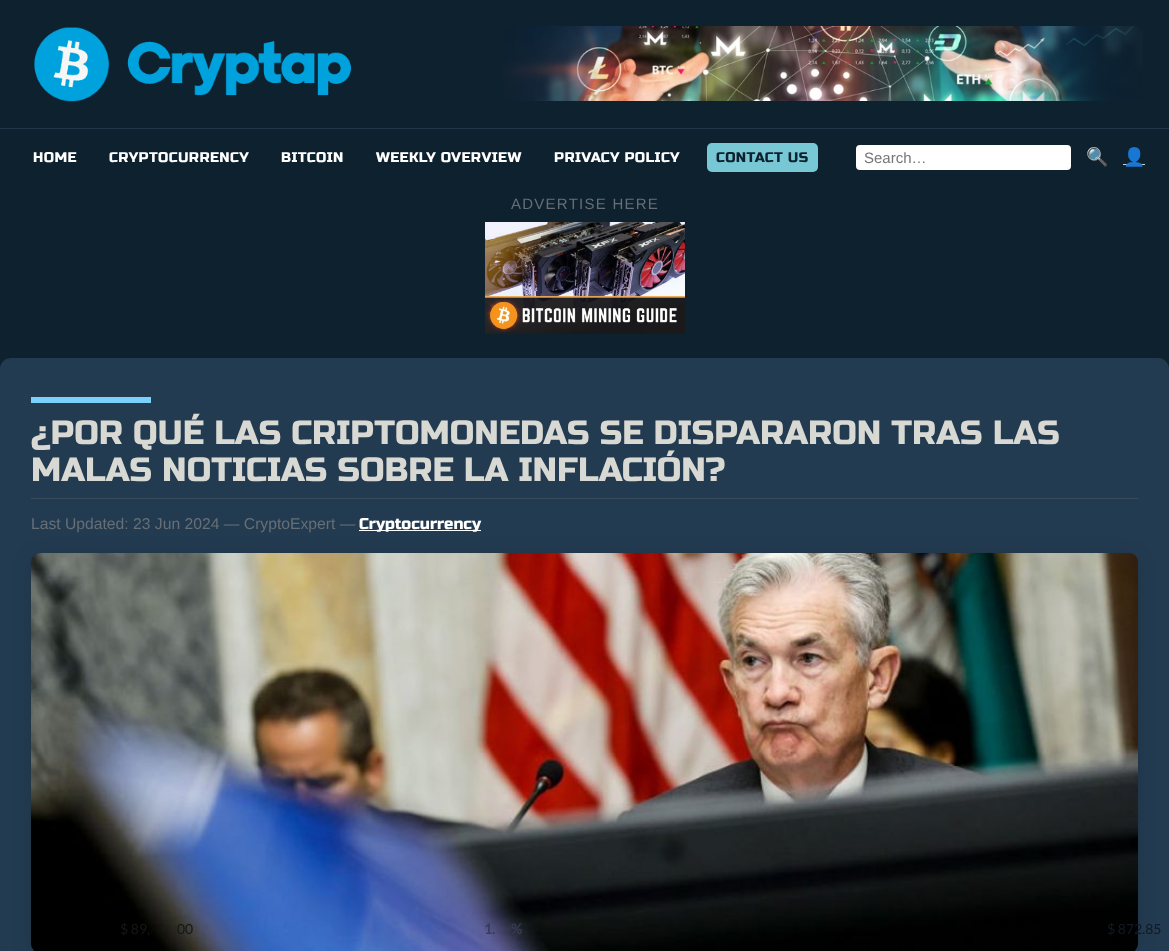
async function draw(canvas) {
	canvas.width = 1169;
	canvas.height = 951;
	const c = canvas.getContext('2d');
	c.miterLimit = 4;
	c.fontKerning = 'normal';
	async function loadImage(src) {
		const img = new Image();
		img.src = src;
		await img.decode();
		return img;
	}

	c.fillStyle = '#0e212e';
	c.fillRect(0, 0, 1169, 951);
	c.drawImage(await loadImage('img1.png'), 34, 27, 317, 75);
	c.drawImage(await loadImage('img2.png'), 503, 26, 640, 75);
	c.fillStyle = '#223649';
	c.fillRect(0, 128, 1169, 1);
	c.letterSpacing = '0.4px';
	c.font = '14.1px Russo One';
	c.fillStyle = '#fff';
	for (const [text, x, y] of [
		['HOME', 33, 162],
		['CRYPTOCURRENCY', 109, 162],
		['BITCOIN', 281, 162],
		['WEEKLY OVERVIEW', 376, 162],
		['PRIVACY POLICY', 554, 162],
	]) {
		c.fillText(text, x, y);
	}
	c.fillStyle = '#78c7d4';
	c.beginPath();
	c.roundRect(707, 143, 111, 29, 5);
	c.fill();
	c.fillStyle = '#0e212e';
	c.fillText('CONTACT US', 716, 162);
	c.fillStyle = '#fff';
	c.beginPath();
	c.roundRect(856, 145, 215, 25, 4);
	c.fill();
	c.letterSpacing = '0px';
	c.font = '15px Liberation Sans';
	c.fillStyle = '#757575';
	c.fillText('Search…', 864, 163);
	c.font = '18px Noto Color Emoji';
	c.fillStyle = '#ced0d2';
	c.fillText('🔍', 1086, 163);
	c.fillRect(1123, 164, 22, 1);
	c.fillText('👤', 1123, 163);
	c.letterSpacing = '1.25px';
	c.font = '15px Liberation Sans';
	c.fillStyle = '#666f75';
	c.fillText('ADVERTISE HERE', 511, 209);
	c.drawImage(await loadImage('img3.png'), 485, 222, 200, 112);
	c.fillStyle = '#233b51';
	c.beginPath();
	c.roundRect(0, 358, 1169, 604, 11);
	c.fill();
	c.fillStyle = '#7cd0fc';
	c.fillRect(31, 397, 120, 6);
	c.fillStyle = '#3a4c5a';
	c.fillRect(31, 498, 1107, 1);
	c.letterSpacing = '0px';
	c.font = '33.6px Russo One';
	c.fillStyle = '#d9d9d4';
	c.fillText('¿POR QUÉ LAS CRIPTOMONEDAS SE DISPARARON TRAS LAS', 31, 444);
	c.fillText('MALAS NOTICIAS SOBRE LA INFLACIÓN?', 31, 481);
	c.font = '15.7px Liberation Sans';
	c.fillStyle = '#666f75';
	c.fillText('Last Updated: 23 Jun 2024 — CryptoExpert —', 31, 529);
	c.fillStyle = '#fff';
	c.fillRect(359, 530, 122, 1);
	c.font = '15.7px Russo One';
	c.fillText('Cryptocurrency', 359, 529);
	c.fillStyle = '#00000021';
	c.filter = 'blur(9px)';
	c.beginPath();
	c.roundRect(31, 555, 1107, 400, 9);
	c.fill();
	c.filter = 'none';
	c.drawImage(await loadImage('img4.png'), 31, 553, 1107, 398);
	c.font = '14px Lato';
	c.fillStyle = '#161613';
	c.fillText('$ 89,', 120, 934);
	c.fillText('00', 177, 934);
	c.font = 'bold 14px Lato';
	c.fillStyle = '#383b57';
	c.fillText('1.', 484, 934);
	c.fillText('%', 511, 934);
	c.font = '14px Lato';
	c.fillStyle = '#101a24';
	c.fillText('$ 872.85', 1107, 934);
}

draw(document.querySelector('canvas'));
